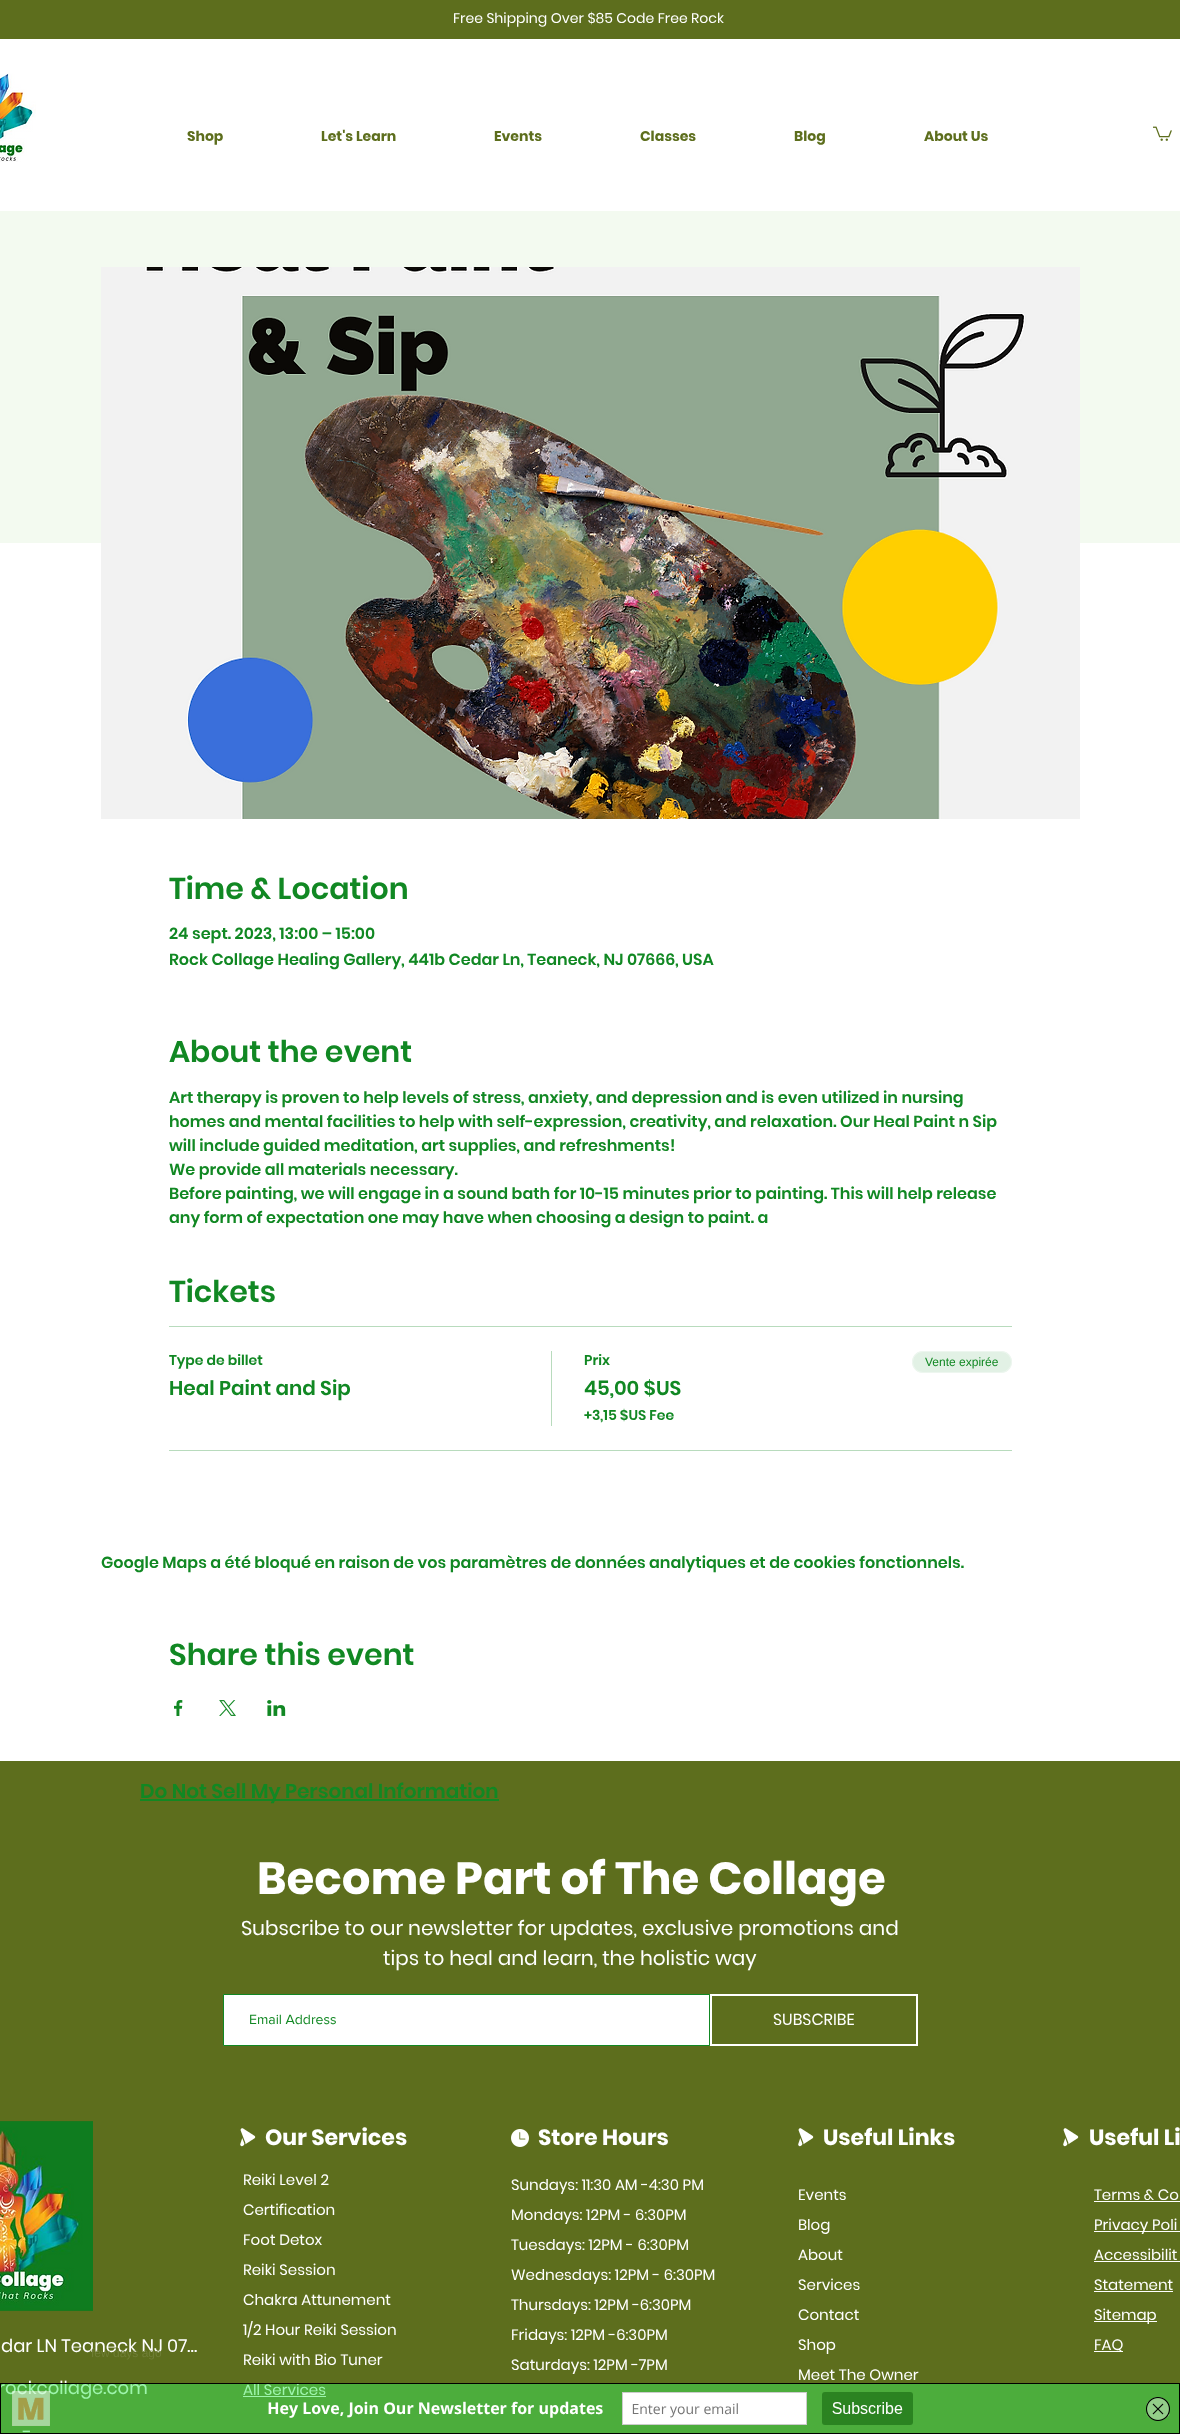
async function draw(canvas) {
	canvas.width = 1180;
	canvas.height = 2434;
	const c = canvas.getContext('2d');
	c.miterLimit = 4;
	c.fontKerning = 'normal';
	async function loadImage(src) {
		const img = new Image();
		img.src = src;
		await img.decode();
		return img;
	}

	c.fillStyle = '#fff';
	c.fillRect(0, 0, 1180, 2434);
	c.fillStyle = '#5d6e1d';
	c.fillRect(0, 0, 1180, 39);
	c.font = '14px Poppins';
	c.fillStyle = '#fff';
	c.fillText('Free Shipping Over $85 Code Free Rock', 453, 23);
	c.drawImage(await loadImage('img1.png'), 0, 73, 36, 89);
	c.font = 'bold 14px Poppins';
	c.fillStyle = '#5d6e1d';
	for (const [text, x, y] of [
		['Shop', 187, 141],
		['Let\'s Learn', 321, 141],
		['Events', 494, 141],
		['Classes', 640, 141],
		['Blog', 794, 141],
		['About Us', 924, 141],
	]) {
		c.fillText(text, x, y);
	}
	c.drawImage(await loadImage('img2.png'), 1153, 126, 19, 15);
	c.fillStyle = '#f3faf0';
	c.fillRect(0, 211, 1180, 332);
	c.drawImage(await loadImage('img3.png'), 101, 267, 979, 552);
	c.font = '600 30px Poppins';
	c.fillStyle = '#118823';
	c.fillText('Time & Location', 169, 899);
	c.font = '600 16px Poppins';
	c.fillText('24 sept. 2023, 13:00 – 15:00', 169, 939);
	c.fillText('Rock Collage Healing Gallery, 441b Cedar Ln, Teaneck, NJ 07666, USA', 169, 965);
	c.font = '600 30px Poppins';
	c.fillText('About the event', 169, 1062);
	c.font = '600 16px Poppins';
	for (const [text, x, y] of [
		['Art therapy is proven to help levels of stress, anxiety, and depression and is even utilized in nursing', 169, 1103],
		['homes and mental facilities to help with self-expression, creativity, and relaxation. Our Heal Paint n Sip', 169, 1127],
		['will include guided meditation, art supplies, and refreshments!', 169, 1151],
		['We provide all materials necessary.', 169, 1175],
		['Before painting, we will engage in a sound bath for 10-15 minutes prior to painting. This will help release', 169, 1199],
		['any form of expectation one may have when choosing a design to paint. a', 169, 1223],
	]) {
		c.fillText(text, x, y);
	}
	c.font = '600 30px Poppins';
	c.fillText('Tickets', 169, 1302);
	c.fillStyle = '#b8dbbd';
	c.fillRect(169, 1326, 843, 1);
	c.fillRect(169, 1450, 843, 1);
	c.font = '600 14px Poppins';
	c.fillStyle = '#118823';
	c.fillText('Type de billet', 169, 1365);
	c.font = '600 20px Poppins';
	c.fillText('Heal Paint and Sip', 169, 1395);
	c.fillStyle = '#b8dbbd';
	c.fillRect(551, 1351, 1, 75);
	c.font = '600 14px Poppins';
	c.fillStyle = '#118823';
	c.fillText('Prix', 584, 1365);
	c.font = '600 20px Poppins';
	c.fillText('45,00 $US', 584, 1395);
	c.font = '600 14px Poppins';
	c.fillText('+3,15 $US Fee', 584, 1420);
	c.fillStyle = '#e2f1e5';
	c.beginPath();
	c.roundRect(912, 1351, 100, 22, 11);
	c.fill();
	c.beginPath();
	c.roundRect(912.5, 1351.5, 99, 21, 10.5);
	c.strokeStyle = '#ffffff66';
	c.stroke();
	c.font = '12px Liberation Sans';
	c.fillStyle = '#118823';
	c.fillText('Vente expirée', 925, 1366);
	c.font = '600 16px Poppins';
	c.fillText('Google Maps a été bloqué en raison de vos paramètres de données analytiques et de cookies fonctionnels.', 101, 1568);
	c.font = '600 30px Poppins';
	c.fillText('Share this event', 169, 1665);
	c.drawImage(await loadImage('img4.png'), 174, 1700, 9, 16);
	c.drawImage(await loadImage('img5.png'), 219, 1700, 17, 16);
	c.drawImage(await loadImage('img6.png'), 267, 1700, 19, 16);
	c.fillStyle = '#5d6e1d';
	c.fillRect(0, 1761, 1180, 672);
	c.fillStyle = '#118823';
	c.fillRect(140, 1799, 359, 2);
	c.font = '600 20px Poppins';
	c.fillText('Do Not Sell My Personal Information', 140, 1798);
	c.font = 'bold 45px Poppins';
	c.fillStyle = '#fff';
	c.fillText('Become Part of The Collage', 257, 1894);
	c.font = '20px Poppins';
	c.fillText('Subscribe to our newsletter for updates, exclusive promotions and', 241, 1935);
	c.fillText('tips to heal and learn, the holistic way', 383, 1965);
	c.beginPath();
	c.rect(223.5, 1994.5, 486, 51);
	c.fill();
	c.strokeStyle = '#118823';
	c.stroke();
	c.font = '14px "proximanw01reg"';
	c.fillStyle = '#118823';
	c.fillText('Email Address', 249, 2024);
	c.strokeStyle = '#fff';
	c.lineWidth = 2;
	c.strokeRect(711, 1995, 206, 50);
	c.font = '16px Poppins';
	c.fillStyle = '#fff';
	c.fillText('SUBSCRIBE', 773, 2025);
	c.drawImage(await loadImage('img7.png'), 0, 2121, 93, 190);
	c.drawImage(await loadImage('img8.png'), 240, 2128, 16, 19);
	c.font = 'bold 22px Poppins';
	c.fillText('Our Services', 265, 2145);
	c.drawImage(await loadImage('img9.png'), 511, 2129, 18, 18);
	c.fillText('Store Hours', 538, 2145);
	c.drawImage(await loadImage('img8.png'), 798, 2128, 16, 19);
	c.fillText('Useful Links', 823, 2145);
	c.drawImage(await loadImage('img8.png'), 1063, 2128, 16, 19);
	c.fillText('Useful Li', 1089, 2145);
	c.font = '18px Poppins';
	c.fillText('dar LN Teaneck NJ 07…', 1, 2352);
	c.font = '15px Poppins';
	for (const [text, x, y] of [
		['Reiki Level 2', 243, 2185],
		['Certification', 243, 2215],
		['Foot Detox', 243, 2245],
		['Reiki Session', 243, 2275],
		['Chakra Attunement', 243, 2305],
		['1/2 Hour Reiki Session', 243, 2335],
		['Reiki with Bio Tuner', 243, 2365],
		['All Services', 243, 2395],
	]) {
		c.fillText(text, x, y);
	}
	c.fillRect(243, 2396, 83, 1);
	for (const [text, x, y] of [
		['Sundays: 11:30 AM -4:30 PM', 511, 2190],
		['Mondays: 12PM - 6:30PM', 511, 2220],
		['Tuesdays: 12PM - 6:30PM', 511, 2250],
		['Wednesdays: 12PM - 6:30PM', 511, 2280],
		['Thursdays: 12PM -6:30PM', 511, 2310],
		['Fridays: 12PM -6:30PM', 511, 2340],
		['Saturdays: 12PM -7PM', 511, 2370],
		['Events', 798, 2200],
		['Blog', 798, 2230],
		['About', 798, 2260],
		['Services', 798, 2290],
		['Contact', 798, 2320],
		['Shop', 798, 2350],
		['Meet The Owner', 798, 2380],
		['Terms & Co', 1094, 2200],
	]) {
		c.fillText(text, x, y);
	}
	c.fillRect(1094, 2201, 86, 1);
	c.fillRect(1094, 2231, 86, 1);
	c.fillText('Privacy Poli', 1094, 2230);
	c.fillText('Accessibilit', 1094, 2260);
	c.fillRect(1094, 2261, 86, 1);
	c.fillText('Statement', 1094, 2290);
	c.fillRect(1094, 2291, 79, 1);
	c.fillRect(1094, 2321, 63, 1);
	c.fillText('Sitemap', 1094, 2320);
	c.fillRect(1094, 2351, 29, 1);
	c.fillText('FAQ', 1094, 2350);
	c.font = '18px Poppins';
	c.fillText('rockcollage.com', -2, 2394);
	c.fillText('-', 23, 2438);
	c.font = '12px Liberation Sans';
	c.fillStyle = '#6f7e36';
	c.fillText('few days ago', 91, 2357);
	c.drawImage(await loadImage('img10.png'), 0, 2383, 1180, 51);
}

draw(document.querySelector('canvas'));
